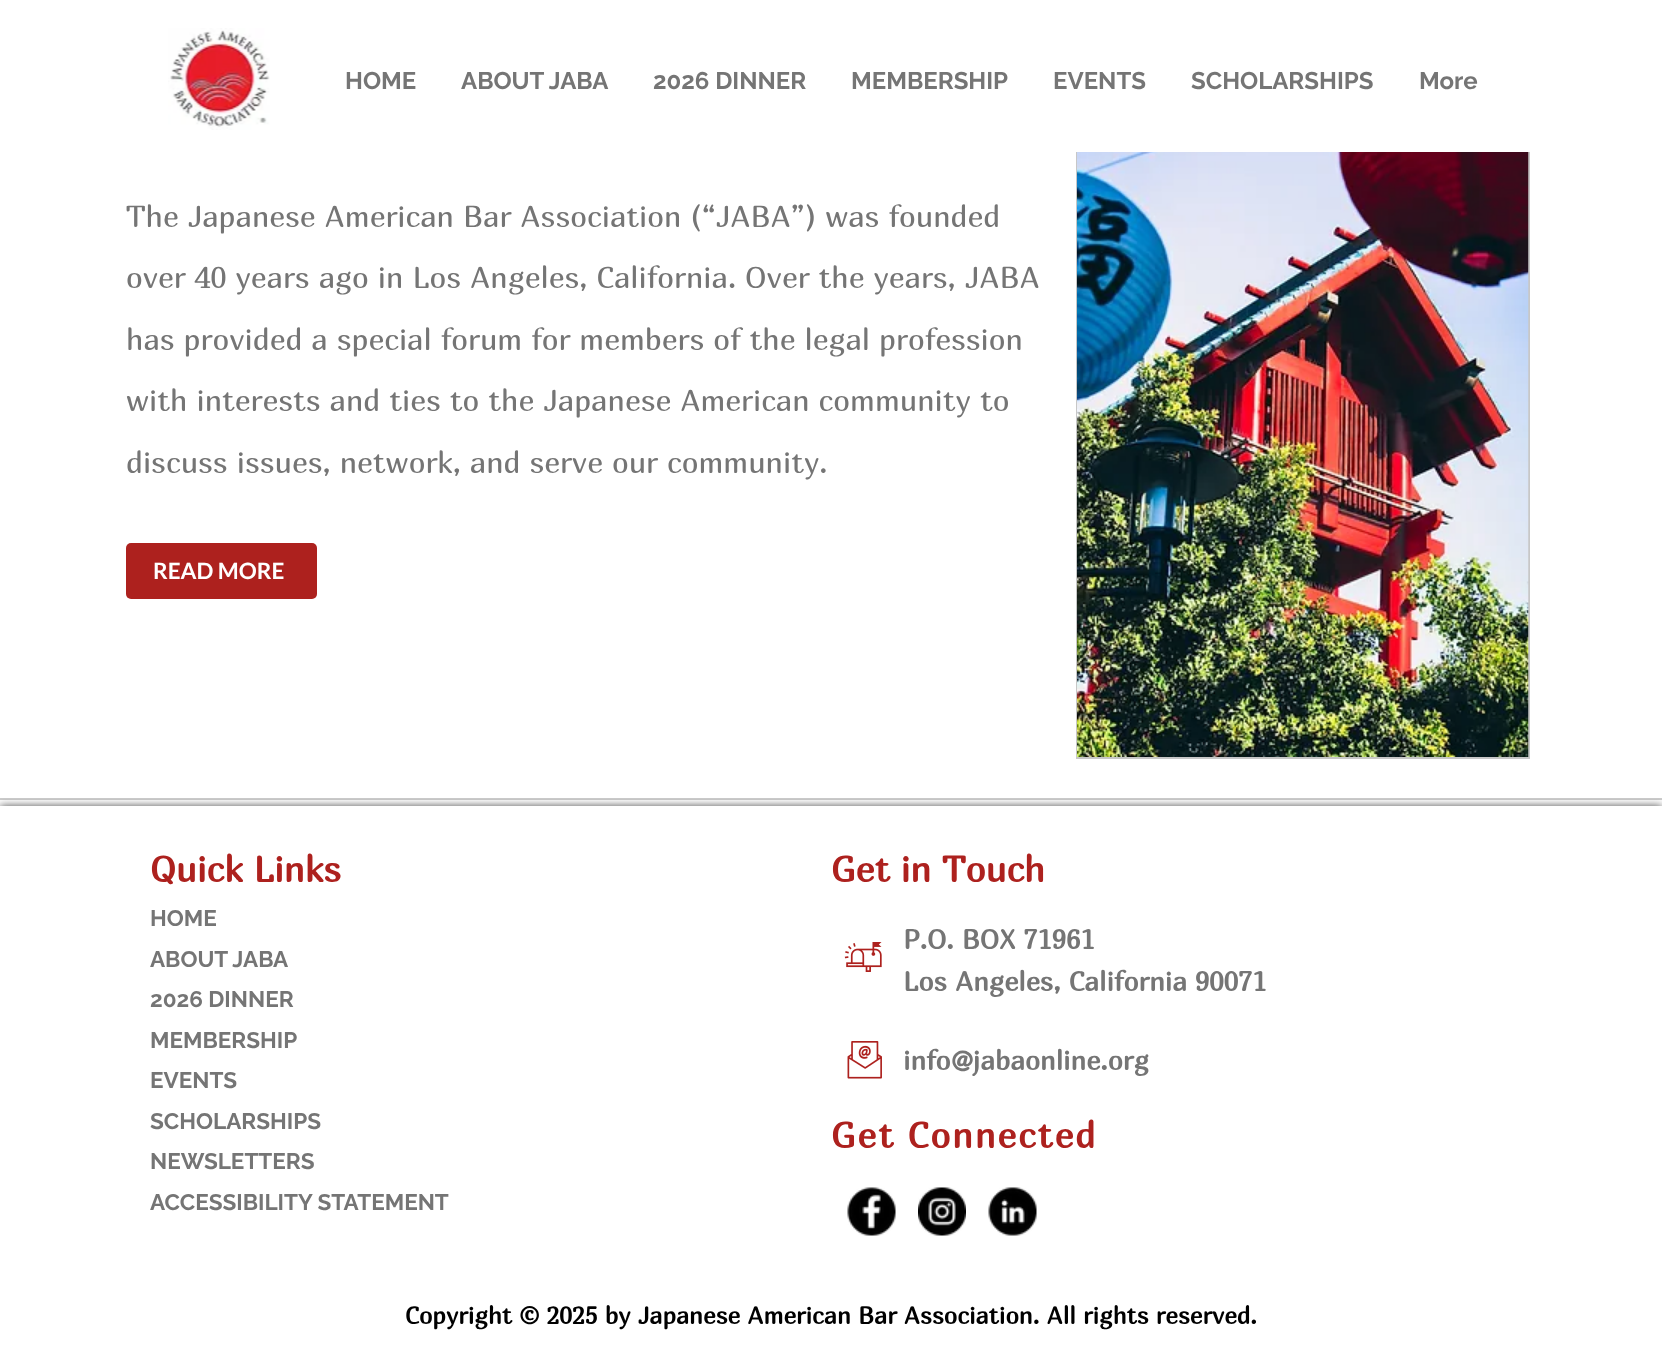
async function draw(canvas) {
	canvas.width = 1662;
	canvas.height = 1346;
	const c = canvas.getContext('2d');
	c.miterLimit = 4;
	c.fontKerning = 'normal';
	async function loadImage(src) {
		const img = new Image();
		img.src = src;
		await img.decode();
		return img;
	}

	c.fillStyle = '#fff';
	c.fillRect(0, 0, 1662, 1346);
	c.drawImage(await loadImage('img1.png'), 168, 28, 102, 102);
	c.font = 'bold 24px Raleway';
	c.fillStyle = '#757575';
	for (const [text, x, y] of [
		['HOME', 345, 89],
		['ABOUT JABA', 461, 89],
		['2026 DINNER', 653, 89],
		['MEMBERSHIP', 851, 89],
		['EVENTS', 1053, 89],
		['SCHOLARSHIPS', 1191, 89],
		['More', 1419, 89],
	]) {
		c.fillText(text, x, y);
	}
	c.font = '30px Marmelad';
	for (const [text, x, y] of [
		['The Japanese American Bar Association (“JABA”) was founded', 126, 227],
		['over 40 years ago in Los Angeles, California. Over the years, JABA', 126, 288],
		['has provided a special forum for members of the legal profession', 126, 350],
		['with interests and ties to the Japanese American community to', 126, 411],
		['discuss issues, network, and serve our community.', 126, 473],
	]) {
		c.fillText(text, x, y);
	}
	c.fillStyle = '#c7c7c7';
	c.fillRect(1076, 152, 454, 607);
	c.drawImage(await loadImage('img2.png'), 1077, 152, 452, 605);
	c.fillStyle = '#ad211e';
	c.beginPath();
	c.roundRect(126, 543, 191, 56, 5);
	c.fill();
	c.font = 'bold 22.5px Lato';
	c.fillStyle = '#fff';
	c.fillText('READ MORE', 153, 579);
	c.fillStyle = '#cecece';
	c.fillRect(0, 798, 1662, 2);
	c.save();
	c.beginPath();
	c.rect(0, 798, 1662, 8);
	c.clip();
	c.fillStyle = '#000000b3';
	c.filter = 'blur(4px)';
	c.beginPath();
	c.rect(0, 806, 1662, 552);
	c.fill();
	c.filter = 'none';
	c.restore();
	c.font = 'bold 36px Marmelad';
	c.fillStyle = '#ad211e';
	c.fillText('Quick Links', 150, 882);
	c.font = 'bold 22.5px Raleway';
	c.fillStyle = '#757575';
	for (const [text, x, y] of [
		['HOME', 150, 926],
		['ABOUT JABA', 150, 967],
		['2026 DINNER', 150, 1007],
		['MEMBERSHIP', 150, 1048],
		['EVENTS', 150, 1088],
		['SCHOLARSHIPS', 150, 1129],
		['NEWSLETTERS', 150, 1169],
		['ACCESSIBILITY STATEMENT', 150, 1210],
	]) {
		c.fillText(text, x, y);
	}
	c.font = 'bold 36px Marmelad';
	c.fillStyle = '#ad211e';
	c.fillText('Get in Touch', 831, 882);
	c.drawImage(await loadImage('img3.png'), 844, 942, 38, 30);
	c.font = 'bold 27px Marmelad';
	c.fillStyle = '#757575';
	c.fillText('P.O. BOX 71961', 903, 949);
	c.fillText('Los Angeles, California 90071', 903, 991);
	c.drawImage(await loadImage('img4.png'), 847, 1041, 35, 38);
	c.fillText('info@jabaonline.org', 903, 1070);
	c.letterSpacing = '1.75px';
	c.font = 'bold 36px Marmelad';
	c.fillStyle = '#ad211e';
	c.fillText('Get Connected', 831, 1148);
	c.drawImage(await loadImage('img5.png'), 847, 1187, 49, 49);
	c.drawImage(await loadImage('img6.png'), 918, 1187, 48, 49);
	c.drawImage(await loadImage('img7.png'), 988, 1187, 49, 49);
	c.letterSpacing = '0px';
	c.font = 'bold 24px Marmelad';
	c.fillStyle = '#000';
	c.fillText('Copyright © 2025 by Japanese American Bar Association. All rights reserved.', 405, 1324);
}

draw(document.querySelector('canvas'));
